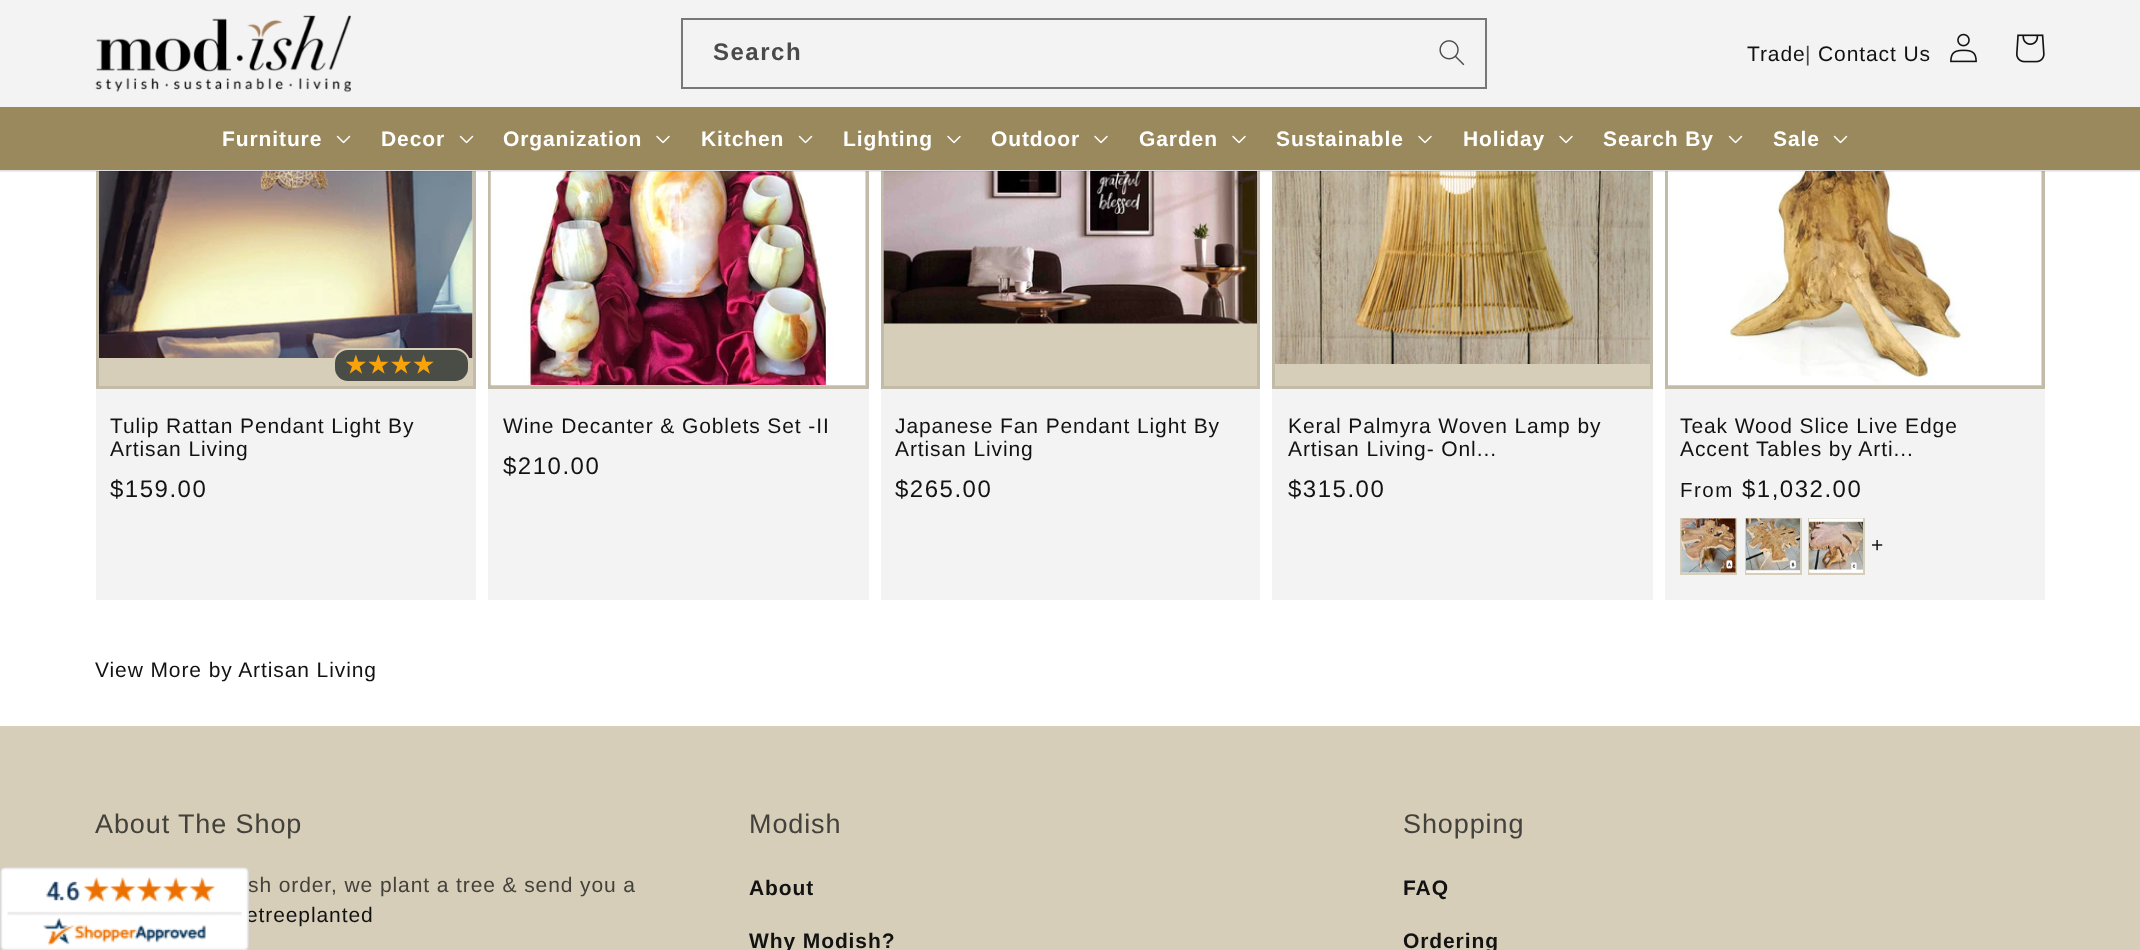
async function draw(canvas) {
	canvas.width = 2140;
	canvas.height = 950;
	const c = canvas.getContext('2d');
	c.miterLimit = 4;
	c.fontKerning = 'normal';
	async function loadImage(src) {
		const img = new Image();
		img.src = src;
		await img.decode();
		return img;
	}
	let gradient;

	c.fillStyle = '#fff';
	c.fillRect(0, 0, 2140, 950);
	c.fillStyle = '#d6ceb8';
	c.fillRect(99, 171, 374, 215);
	c.strokeStyle = '#c2bba7';
	c.lineWidth = 3;
	c.strokeRect(97.5, 10.5, 377, 377);
	c.fillRect(491, 171, 375, 215);
	c.strokeRect(489.5, 10.5, 378, 377);
	c.fillRect(884, 323, 373, 63);
	c.strokeRect(882.5, 10.5, 376, 377);
	c.fillRect(1275, 364, 375, 22);
	c.strokeRect(1273.5, 10.5, 378, 377);
	c.fillRect(1668, 171, 374, 215);
	c.strokeRect(1666.5, 10.5, 377, 377);
	c.fillStyle = '#f3f3f3';
	c.fillRect(0, 0, 2140, 171);
	c.drawImage(await loadImage('img7.png'), 99, 171, 374, 187);
	c.drawImage(await loadImage('img8.png'), 490, 171, 376, 214);
	c.drawImage(await loadImage('img9.png'), 883, 171, 374, 153);
	c.drawImage(await loadImage('img10.png'), 1275, 171, 375, 193);
	c.drawImage(await loadImage('img11.png'), 1668, 171, 374, 214);
	c.fillStyle = '#12121214';
	c.fillRect(0, 170, 2140, 2);
	c.drawImage(await loadImage('img1.png'), 95, 15, 256, 77);
	c.drawImage(await loadImage('img2.png'), 1439, 40, 26, 26);
	c.strokeStyle = '#777';
	c.lineWidth = 2;
	c.strokeRect(682, 19, 804, 69);
	c.letterSpacing = '1.5px';
	c.font = 'bold 24px Liberation Sans';
	c.fillStyle = '#4a4a4a';
	c.fillText('Search', 713, 60);
	c.letterSpacing = '0.9px';
	c.font = '21px Liberation Sans';
	c.fillStyle = '#121212';
	c.fillText('Trade', 1747, 61);
	c.fillStyle = '#4a4a4a';
	c.fillText('|', 1805, 61);
	c.fillStyle = '#121212';
	c.fillText('Contact Us', 1818, 61);
	c.drawImage(await loadImage('img3.png'), 1950, 33, 27, 30);
	c.drawImage(await loadImage('img4.png'), 2016, 34, 29, 29);
	c.fillStyle = '#99895c';
	c.fillRect(0, 107, 2140, 63);
	c.font = 'bold 21px Liberation Sans';
	c.fillStyle = '#fff';
	c.fillText('Furniture', 222, 146);
	c.drawImage(await loadImage('img5.png'), 336, 135, 15, 9);
	c.fillText('Decor', 381, 146);
	c.drawImage(await loadImage('img5.png'), 459, 135, 15, 9);
	c.fillText('Organization', 503, 146);
	c.drawImage(await loadImage('img6.png'), 656, 135, 14, 9);
	c.fillText('Kitchen', 701, 146);
	c.drawImage(await loadImage('img5.png'), 798, 135, 15, 9);
	c.fillText('Lighting', 843, 146);
	c.drawImage(await loadImage('img6.png'), 947, 135, 14, 9);
	c.fillText('Outdoor', 991, 146);
	c.drawImage(await loadImage('img6.png'), 1094, 135, 14, 9);
	c.fillText('Garden', 1139, 146);
	c.drawImage(await loadImage('img6.png'), 1232, 135, 14, 9);
	c.fillText('Sustainable', 1276, 146);
	c.drawImage(await loadImage('img6.png'), 1418, 135, 14, 9);
	c.fillText('Holiday', 1463, 146);
	c.drawImage(await loadImage('img6.png'), 1559, 135, 14, 9);
	c.fillText('Search By', 1603, 146);
	c.drawImage(await loadImage('img5.png'), 1728, 135, 15, 9);
	c.fillText('Sale', 1773, 146);
	c.drawImage(await loadImage('img5.png'), 1833, 135, 15, 9);
	c.fillStyle = '#494d46';
	c.beginPath();
	c.roundRect(334, 349, 135, 33, 14);
	c.fill();
	c.strokeStyle = '#d6ceb8';
	c.stroke();
	c.letterSpacing = '1.5px';
	c.font = 'bold 23.5px DejaVu Sans';
	gradient = c.createLinearGradient(345, 365, 458, 365);
	gradient.addColorStop(0.8, '#f7a309');
	gradient.addColorStop(0.8, '#41443e');
	c.fillStyle = gradient;
	c.fillText('★★★★', 345, 373);
	c.fillStyle = '#f3f3f3';
	c.fillRect(96, 389, 380, 211);
	c.letterSpacing = '0.9px';
	c.font = '21px Liberation Sans';
	c.fillStyle = '#121212';
	c.fillText('Tulip Rattan Pendant Light By', 110, 433);
	c.fillText('Artisan Living', 110, 456);
	c.letterSpacing = '1.5px';
	c.font = '24px Liberation Sans';
	c.fillText('$159.00', 110, 497);
	c.fillStyle = '#f3f3f3';
	c.fillRect(488, 389, 381, 211);
	c.letterSpacing = '0.9px';
	c.font = '21px Liberation Sans';
	c.fillStyle = '#121212';
	c.fillText('Wine Decanter & Goblets Set -II', 503, 433);
	c.letterSpacing = '1.5px';
	c.font = '24px Liberation Sans';
	c.fillText('$210.00', 503, 474);
	c.fillStyle = '#f3f3f3';
	c.fillRect(881, 389, 379, 211);
	c.letterSpacing = '0.9px';
	c.font = '21px Liberation Sans';
	c.fillStyle = '#121212';
	c.fillText('Japanese Fan Pendant Light By', 895, 433);
	c.fillText('Artisan Living', 895, 456);
	c.letterSpacing = '1.5px';
	c.font = '24px Liberation Sans';
	c.fillText('$265.00', 895, 497);
	c.fillStyle = '#f3f3f3';
	c.fillRect(1272, 389, 381, 211);
	c.letterSpacing = '0.9px';
	c.font = '21px Liberation Sans';
	c.fillStyle = '#121212';
	c.fillText('Keral Palmyra Woven Lamp by', 1288, 433);
	c.fillText('Artisan Living- Onl...', 1288, 456);
	c.letterSpacing = '1.5px';
	c.font = '24px Liberation Sans';
	c.fillText('$315.00', 1288, 497);
	c.fillStyle = '#f3f3f3';
	c.fillRect(1665, 389, 380, 211);
	c.letterSpacing = '0.9px';
	c.font = '21px Liberation Sans';
	c.fillStyle = '#121212';
	c.fillText('Teak Wood Slice Live Edge', 1680, 433);
	c.fillText('Accent Tables by Arti...', 1680, 456);
	c.letterSpacing = '1.5px';
	c.font = '20.5px Liberation Sans';
	c.fillText('From', 1680, 497);
	c.font = '24px Liberation Sans';
	c.fillText('$1,032.00', 1742, 497);
	c.strokeRect(1681, 519, 55, 55);
	c.drawImage(await loadImage('img12.png'), 1681, 518, 55, 55);
	c.strokeRect(1746, 519, 55, 55);
	c.drawImage(await loadImage('img13.png'), 1746, 518, 54, 55);
	c.strokeRect(1809, 519, 55, 55);
	c.drawImage(await loadImage('img14.png'), 1809, 518, 54, 55);
	c.letterSpacing = '0.9px';
	c.font = '21px Liberation Sans';
	c.fillText('+', 1871, 552);
	c.fillText('View More by Artisan Living', 95, 677);
	c.fillStyle = '#d6ceb8';
	c.fillRect(0, 726, 2140, 224);
	c.font = '27px Liberation Sans';
	c.fillStyle = '#43413c';
	c.fillText('About The Shop', 95, 833);
	c.font = '21px Liberation Sans';
	c.fillText('sh order, we plant a tree & send you a', 248, 892);
	c.fillStyle = '#121212';
	c.fillText('etreeplanted', 246, 922);
	c.font = '27px Liberation Sans';
	c.fillStyle = '#43413c';
	c.fillText('Modish', 749, 833);
	c.font = 'bold 21px Liberation Sans';
	c.fillStyle = '#121212';
	c.fillText('About', 749, 895);
	c.fillText('Why Modish?', 749, 948);
	c.font = '27px Liberation Sans';
	c.fillStyle = '#43413c';
	c.fillText('Shopping', 1403, 833);
	c.font = 'bold 21px Liberation Sans';
	c.fillStyle = '#121212';
	c.fillText('FAQ', 1403, 895);
	c.fillText('Ordering', 1403, 948);
	c.drawImage(await loadImage('img15.png'), 0, 867, 249, 83);
}

draw(document.querySelector('canvas'));
